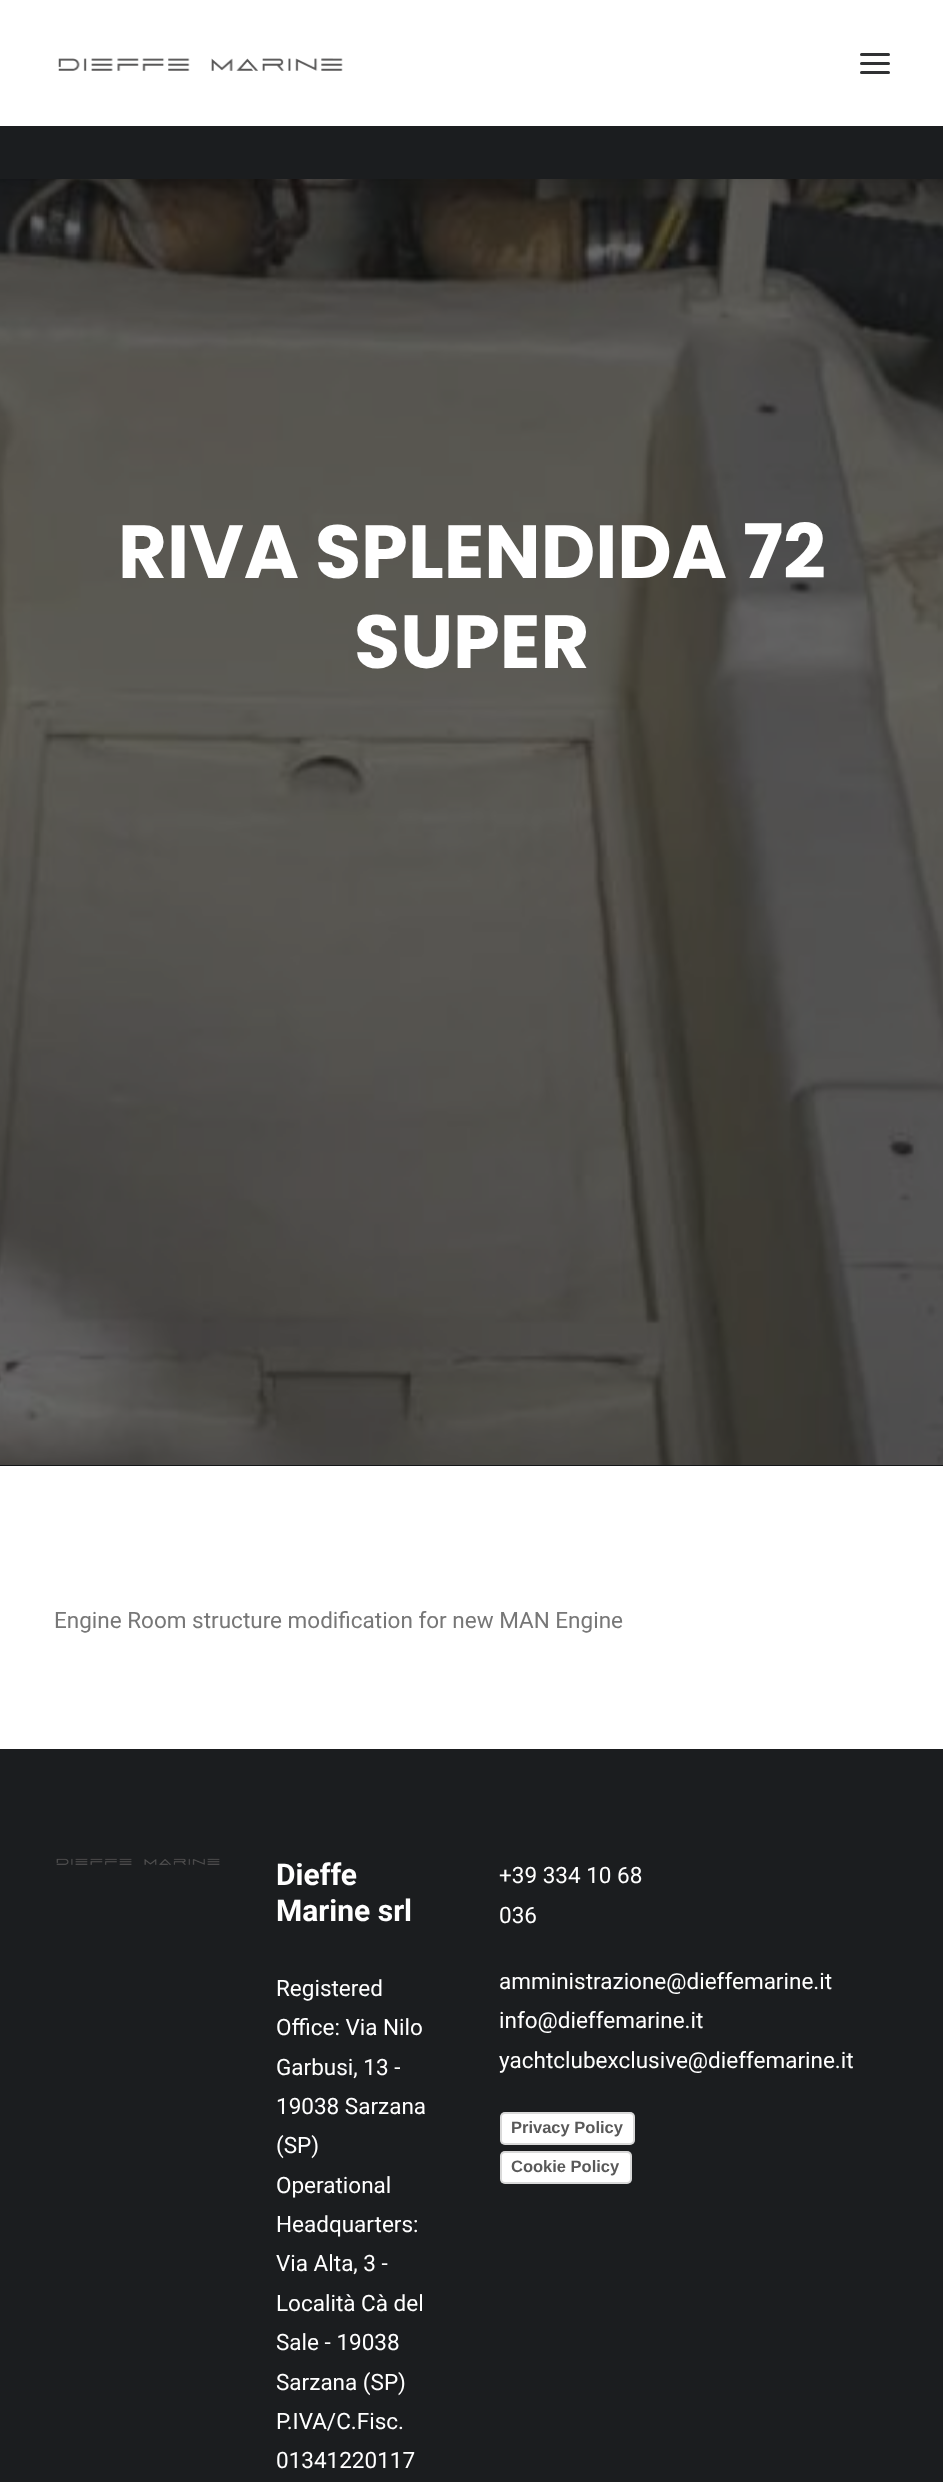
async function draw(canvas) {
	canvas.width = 943;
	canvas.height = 2482;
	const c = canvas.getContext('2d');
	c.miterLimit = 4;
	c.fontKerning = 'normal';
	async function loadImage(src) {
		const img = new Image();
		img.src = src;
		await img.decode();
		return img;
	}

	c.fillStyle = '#141618';
	c.fillRect(0, 0, 943, 2482);
	c.drawImage(await loadImage('img2.png'), 0, 179, 943, 1286);
	c.fillStyle = '#00000099';
	c.filter = 'blur(7.5px)';
	c.beginPath();
	c.rect(15, 21, 914, 149);
	c.fill();
	c.filter = 'none';
	c.fillStyle = '#fff';
	c.fillRect(0, 0, 943, 126);
	c.drawImage(await loadImage('img1.png'), 58, 58, 285, 13);
	c.fillStyle = '#303133';
	c.beginPath();
	c.roundRect(860, 62, 30, 3, 1.5);
	c.fill();
	c.beginPath();
	c.roundRect(860, 53, 30, 3, 1.5);
	c.fill();
	c.beginPath();
	c.roundRect(860, 71, 30, 3, 1.5);
	c.fill();
	c.fillStyle = '#1b1d1f';
	c.fillRect(0, 126, 943, 53);
	c.font = 'bold 75px Poppins';
	c.fillStyle = '#fff';
	c.fillText('RIVA SPLENDIDA 72', 118, 578);
	c.fillText('SUPER', 354, 668);
	c.fillRect(0, 1466, 943, 283);
	c.font = '22.5px Roboto';
	c.fillStyle = '#777';
	c.fillText('Engine Room structure modification for new MAN Engine', 54, 1628);
	c.fillStyle = '#1b1d1f';
	c.fillRect(0, 1749, 943, 733);
	c.drawImage(await loadImage('img3.png'), 56, 1858, 164, 7);
	c.font = 'bold 30px Roboto';
	c.fillStyle = '#fff';
	c.fillText('Dieffe', 276, 1885);
	c.fillText('Marine srl', 276, 1921);
	c.font = '22.5px Roboto';
	for (const [text, x, y] of [
		['Registered', 276, 1996],
		['Office: Via Nilo', 276, 2035],
		['Garbusi, 13 -', 276, 2075],
		['19038 Sarzana', 276, 2114],
		['(SP)', 276, 2153],
		['Operational', 276, 2193],
		['Headquarters:', 276, 2232],
		['Via Alta, 3 -', 276, 2271],
		['Località Cà del', 276, 2311],
		['Sale - 19038', 276, 2350],
		['Sarzana (SP)', 276, 2390],
		['P.IVA/C.Fisc.', 276, 2429],
		['01341220117', 276, 2468],
		['+39 334 10 68', 499, 1883],
		['036', 499, 1923],
		['amministrazione@dieffemarine.it', 499, 1989],
		['info@dieffemarine.it', 499, 2028],
		['yachtclubexclusive@dieffemarine.it', 499, 2068],
	]) {
		c.fillText(text, x, y);
	}
	c.beginPath();
	c.roundRect(500, 2112, 135, 33, 5);
	c.fill();
	c.beginPath();
	c.roundRect(501, 2113, 133, 31, 4);
	c.strokeStyle = '#00000026';
	c.lineWidth = 2;
	c.stroke();
	c.font = 'bold 16.5px Liberation Sans';
	c.fillStyle = '#595959';
	c.fillText('Privacy Policy', 511, 2133);
	c.fillStyle = '#fff';
	c.beginPath();
	c.roundRect(500, 2151, 132, 33, 5);
	c.fill();
	c.beginPath();
	c.roundRect(501, 2152, 130, 31, 4);
	c.stroke();
	c.fillStyle = '#595959';
	c.fillText('Cookie Policy', 511, 2172);
}

draw(document.querySelector('canvas'));
